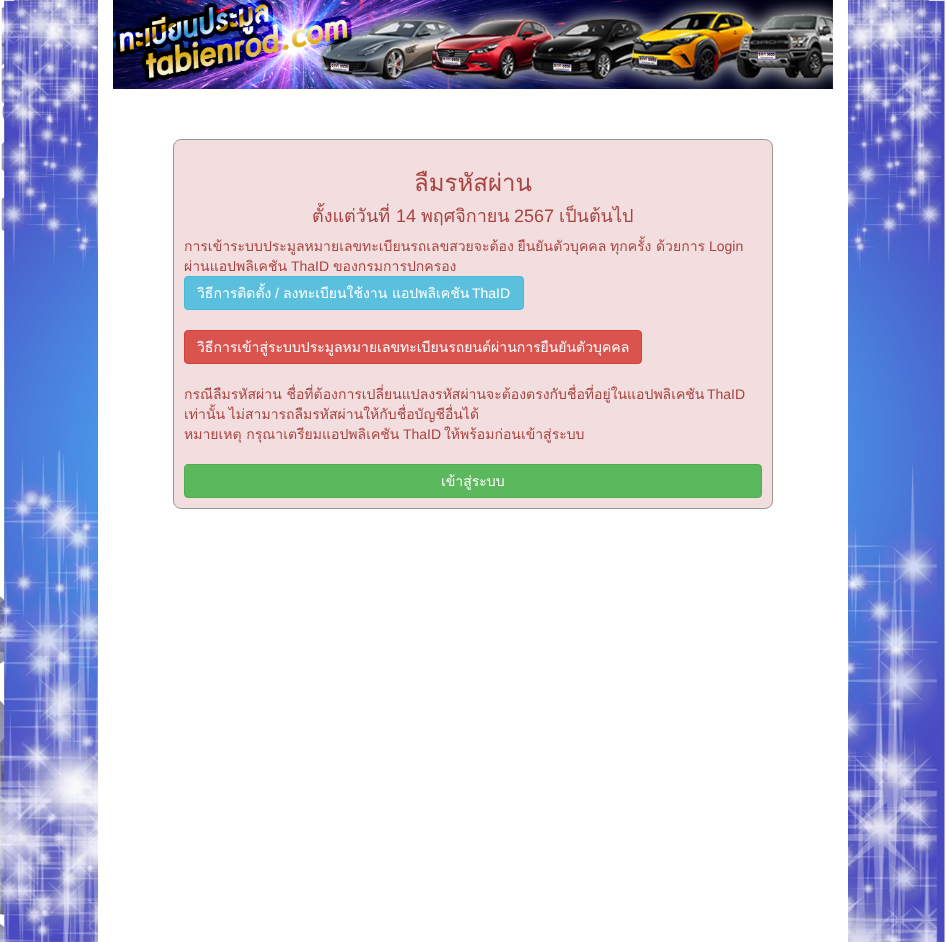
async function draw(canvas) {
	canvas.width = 946;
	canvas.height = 942;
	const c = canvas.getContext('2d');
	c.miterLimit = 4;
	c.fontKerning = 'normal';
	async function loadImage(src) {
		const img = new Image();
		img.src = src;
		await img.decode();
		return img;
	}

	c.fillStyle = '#fff';
	c.fillRect(0, 0, 946, 942);
	c.drawImage(await loadImage('img1.png'), 0, 0, 946, 942);
	c.fillRect(98, 0, 750, 942);
	c.drawImage(await loadImage('img2.png'), 113, 0, 720, 89);
	c.fillStyle = '#f2dede';
	c.beginPath();
	c.roundRect(173.5, 139.5, 599, 369, 7.5);
	c.fill();
	c.strokeStyle = '#999';
	c.stroke();
	c.font = '24px Loma';
	c.fillStyle = '#a94442';
	c.fillText('ลืมรหัสผ่าน', 414, 191);
	c.font = '18px Loma';
	c.fillText('ตั้งแต่วันที่', 312, 222);
	c.font = '18px Liberation Sans';
	c.fillText('14', 396, 222);
	c.font = '18px Loma';
	c.fillText('พฤศจิกายน', 421, 222);
	c.font = '18px Liberation Sans';
	c.fillText('2567', 514, 222);
	c.font = '18px Loma';
	c.fillText('เป็นต้นไป', 559, 222);
	c.wordSpacing = '-1px';
	c.font = '14px Loma';
	c.fillText('การเข้าระบบประมูลหมายเลขทะเบียนรถเลขสวยจะต้อง ยืนยันตัวบุคคล ทุกครั้ง', 184, 251);
	c.wordSpacing = '0px';
	c.fillText('ด้วยการ', 656, 251);
	c.font = '14px Liberation Sans';
	c.fillText('Login', 709, 251);
	c.font = '14px Loma';
	c.fillText('ผ่านแอปพลิเคชัน', 184, 271);
	c.font = '14px Liberation Sans';
	c.fillText('ThaID', 291, 271);
	c.font = '14px Loma';
	c.fillText('ของกรมการปกครอง', 333, 271);
	c.fillStyle = '#5bc0de';
	c.beginPath();
	c.roundRect(184.5, 276.5, 339, 33, 3.5);
	c.fill();
	c.strokeStyle = '#46b8da';
	c.stroke();
	c.fillStyle = '#fff';
	c.fillText('วิธีการติดตั้ง', 197, 298);
	c.font = '14px Liberation Sans';
	c.fillText('/', 275, 298);
	c.font = '14px Loma';
	c.fillText('ลงทะเบียนใช้งาน แอปพลิเคชัน', 283, 298);
	c.font = '14px Liberation Sans';
	c.fillText('ThaID', 472, 298);
	c.fillStyle = '#d9534f';
	c.beginPath();
	c.roundRect(184.5, 330.5, 457, 33, 3.5);
	c.fill();
	c.strokeStyle = '#d43f3a';
	c.stroke();
	c.font = '14px Loma';
	c.fillStyle = '#fff';
	c.fillText('วิธีการเข้าสู่ระบบประมูลหมายเลขทะเบียนรถยนต์ผ่านการยืนยันตัวบุคคล', 197, 352);
	c.fillStyle = '#a94442';
	c.fillText('กรณีลืมรหัสผ่าน ชื่อที่ต้องการเปลี่ยนแปลงรหัสผ่านจะต้องตรงกับชื่อที่อยู่ในแอปพลิเคชัน', 184, 399);
	c.font = '14px Liberation Sans';
	c.fillText('ThaID', 707, 399);
	c.wordSpacing = '-1px';
	c.font = '14px Loma';
	c.fillText('เท่านั้น ไม่สามารถลืมรหัสผ่านให้กับชื่อบัญชีอื่นได้', 184, 419);
	c.wordSpacing = '0px';
	c.fillText('หมายเหตุ กรุณาเตรียมแอปพลิเคชัน', 184, 439);
	c.font = '14px Liberation Sans';
	c.fillText('ThaID', 403, 439);
	c.font = '14px Loma';
	c.fillText('ให้พร้อมก่อนเข้าสู่ระบบ', 444, 439);
	c.fillStyle = '#5cb85c';
	c.beginPath();
	c.roundRect(184.5, 464.5, 577, 33, 3.5);
	c.fill();
	c.strokeStyle = '#4cae4c';
	c.stroke();
	c.fillStyle = '#fff';
	c.fillText('เข้าสู่ระบบ', 441, 486);
}

draw(document.querySelector('canvas'));
